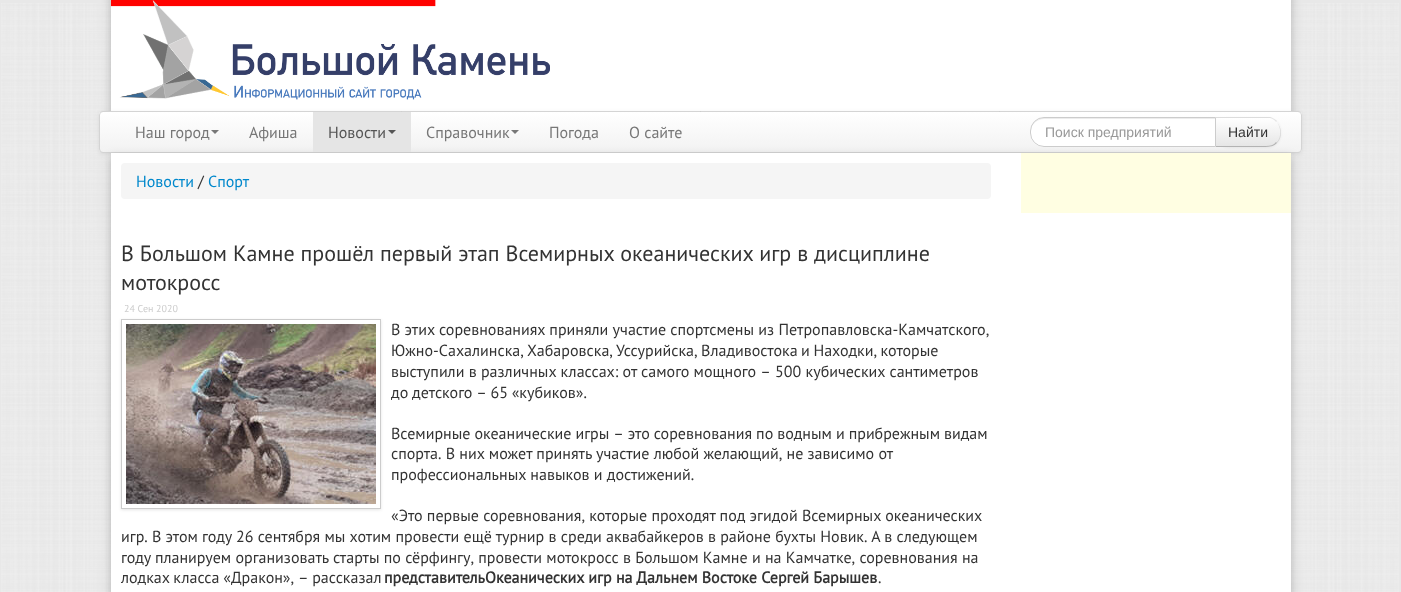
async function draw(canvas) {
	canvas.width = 1401;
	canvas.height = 592;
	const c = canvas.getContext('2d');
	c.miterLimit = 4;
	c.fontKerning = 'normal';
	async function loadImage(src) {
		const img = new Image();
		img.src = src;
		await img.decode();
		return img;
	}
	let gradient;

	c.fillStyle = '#e8e8e8';
	c.fillRect(0, 0, 1401, 592);
	c.drawImage(await loadImage('img1.png'), 1, 3, 1398, 589);
	c.fillStyle = '#00000033';
	c.filter = 'blur(4px)';
	c.beginPath();
	c.rect(110, -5, 1182, 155);
	c.fill();
	c.filter = 'none';
	c.fillStyle = '#fff';
	c.fillRect(111, 0, 1180, 111);
	c.drawImage(await loadImage('img2.png'), 111, 0, 439, 100);
	c.fillStyle = '#00000012';
	c.filter = 'blur(2px)';
	c.beginPath();
	c.roundRect(99, 112, 1203, 42, 4);
	c.fill();
	c.filter = 'none';
	c.save();
	c.beginPath();
	c.roundRect(99, 111, 1203, 42, 4);
	c.clip();
	gradient = c.createLinearGradient(701, 112, 701, 152);
	gradient.addColorStop(0, '#fff');
	gradient.addColorStop(1, '#f2f2f2');
	c.fillStyle = gradient;
	c.fillRect(99, 112, 1203, 40);
	c.restore();
	c.beginPath();
	c.roundRect(99.5, 111.5, 1202, 41, 3.5);
	c.strokeStyle = '#d4d4d4';
	c.stroke();
	c.font = '16px PT Sans';
	c.fillStyle = '#777';
	c.fillText('Наш город', 135, 138);
	c.beginPath();
	c.moveTo(211, 130);
	c.lineTo(219, 130);
	c.lineTo(215, 134);
	c.closePath();
	c.fill();
	c.fillText('Афиша', 249, 138);
	c.fillStyle = '#00000033';
	c.filter = 'blur(4px)';
	c.beginPath();
	c.rect(110, 156, 1182, 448);
	c.fill();
	c.filter = 'none';
	c.fillStyle = '#e5e5e5';
	c.fillRect(313, 112, 98, 40);
	c.fillStyle = '#555';
	c.fillText('Новости', 328, 138);
	c.beginPath();
	c.moveTo(388, 130);
	c.lineTo(396, 130);
	c.lineTo(392, 134);
	c.closePath();
	c.fill();
	c.fillStyle = '#777';
	c.fillText('Справочник', 426, 138);
	c.beginPath();
	c.moveTo(511, 130);
	c.lineTo(519, 130);
	c.lineTo(515, 134);
	c.closePath();
	c.fill();
	c.fillText('Погода', 549, 138);
	c.fillText('О сайте', 629, 138);
	c.fillStyle = '#0000000d';
	c.filter = 'blur(1px)';
	c.beginPath();
	c.roundRect(1215, 118, 66, 30, 14);
	c.fill();
	c.filter = 'none';
	c.fillStyle = '#f5f5f5';
	c.beginPath();
	c.roundRect(1215, 117, 66, 30, [0, 14, 14, 0]);
	c.fill();
	c.save();
	c.beginPath();
	c.roundRect(1215, 117, 66, 30, [0, 14, 14, 0]);
	c.clip();
	gradient = c.createLinearGradient(1248, 118, 1248, 146);
	gradient.addColorStop(0, '#fff');
	gradient.addColorStop(1, '#e6e6e6');
	c.fillStyle = gradient;
	c.fillRect(1216, 118, 65, 28);
	c.restore();
	c.fillStyle = '#0000001a';
	c.beginPath();
	c.moveTo(1215, 117);
	c.lineTo(1216, 118);
	c.lineTo(1270, 118);
	c.bezierCurveTo(1273, 119, 1275, 120, 1276, 122);
	c.lineTo(1277, 121);
	c.bezierCurveTo(1275, 119, 1273, 118, 1270, 117);
	c.closePath();
	c.fill();
	c.beginPath();
	c.moveTo(1276.5, 121.5);
	c.bezierCurveTo(1282, 127, 1283, 137.5, 1277, 143);
	c.lineTo(1276.5, 142.5);
	c.bezierCurveTo(1282, 137.5, 1281, 127, 1276.5, 121.5);
	c.closePath();
	c.fill();
	c.fillStyle = '#b3b3b3';
	c.beginPath();
	c.moveTo(1265, 147);
	c.bezierCurveTo(1270, 147, 1274, 146, 1277, 143);
	c.lineTo(1276, 142);
	c.bezierCurveTo(1274, 145, 1270, 146, 1266, 146);
	c.lineTo(1216, 146);
	c.lineTo(1215, 147);
	c.closePath();
	c.fill();
	c.fillStyle = '#fff';
	c.beginPath();
	c.roundRect(1030, 117, 186, 30, [14, 0, 0, 14]);
	c.fill();
	c.fillStyle = '#ececec';
	c.beginPath();
	c.moveTo(1044, 119);
	c.lineTo(1215, 119);
	c.lineTo(1215, 118);
	c.lineTo(1044, 118);
	c.bezierCurveTo(1037, 118, 1031, 123, 1031, 130);
	c.bezierCurveTo(1032, 124, 1037, 119, 1044, 119);
	c.closePath();
	c.fill();
	c.beginPath();
	c.roundRect(1030.5, 117.5, 185, 29, [13.5, 0, 0, 13.5]);
	c.strokeStyle = '#ccc';
	c.stroke();
	c.font = '14px Liberation Sans';
	c.fillStyle = '#999';
	c.fillText('Поиск предприятий', 1045, 137);
	c.fillStyle = '#333';
	c.fillText('Найти', 1228, 137);
	c.fillStyle = '#fff';
	c.fillRect(111, 153, 1180, 439);
	c.fillStyle = '#f5f5f5';
	c.beginPath();
	c.roundRect(121, 163, 870, 36, 4);
	c.fill();
	c.font = '16px PT Sans';
	c.fillStyle = '#08c';
	c.fillText('Новости', 136, 187);
	c.fillStyle = '#333';
	c.fillText('/', 198, 187);
	c.fillStyle = '#08c';
	c.fillText('Спорт', 208, 187);
	c.wordSpacing = '0.1px';
	c.font = '22px PT Sans';
	c.fillStyle = '#333';
	c.fillText('В Большом Камне прошёл первый этап Всемирных океанических игр в дисциплине', 121, 261);
	c.wordSpacing = '0px';
	c.fillText('мотокросс', 121, 290);
	c.font = '10px PT Sans';
	c.fillStyle = '#ccc';
	c.fillText('24 Сен 2020', 124, 312);
	c.save();
	c.beginPath();
	c.moveTo(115, 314);
	c.lineTo(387, 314);
	c.lineTo(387, 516);
	c.lineTo(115, 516);
	c.closePath();
	c.moveTo(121, 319);
	c.lineTo(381, 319);
	c.lineTo(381, 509);
	c.lineTo(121, 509);
	c.closePath();
	c.clip('evenodd');
	c.fillStyle = '#0000001a';
	c.filter = 'blur(1.5px)';
	c.beginPath();
	c.rect(121, 320, 260, 190);
	c.fill();
	c.filter = 'none';
	c.restore();
	c.strokeRect(121.5, 319.5, 259, 189);
	c.drawImage(await loadImage('img3.png'), 126, 324, 250, 180);
	c.font = '16px PT Sans';
	c.fillStyle = '#333';
	c.fillText('В этих соревнованиях приняли участие спортсмены из Петропавловска-Камчатского,', 391, 335);
	c.wordSpacing = '-0.75px';
	c.fillText('Южно-Сахалинска, Хабаровска, Уссурийска, Владивостока и Находки, которые', 391, 356);
	c.wordSpacing = '0px';
	c.fillText('выступили в различных классах: от самого мощного – 500 кубических сантиметров', 391, 377);
	c.wordSpacing = '-0.5px';
	c.fillText('до детского – 65 «кубиков».', 391, 398);
	c.wordSpacing = '-0.25px';
	c.fillText('Всемирные океанические игры – это соревнования по водным и прибрежным видам', 391, 439);
	c.wordSpacing = '0px';
	for (const [text, x, y] of [
		['спорта. В них может принять участие любой желающий, не зависимо от', 391, 459],
		['профессиональных навыков и достижений.', 391, 480],
		['«Это первые соревнования, которые проходят под эгидой Всемирных океанических', 391, 521],
		['игр. В этом году 26 сентября мы хотим провести ещё турнир в среди аквабайкеров в районе бухты Новик. А в следующем', 121, 542],
		['году планируем организовать старты по сёрфингу, провести мотокросс в Большом Камне и на Камчатке, соревнования на', 121, 563],
	]) {
		c.fillText(text, x, y);
	}
	c.wordSpacing = '-0.5px';
	c.fillText('лодках класса «Дракон», – рассказал', 121, 583);
	c.wordSpacing = '0px';
	c.font = 'bold 16px PT Sans';
	c.fillText('представительОкеанических игр на Дальнем Востоке Сергей Барышев', 384, 583);
	c.font = '16px PT Sans';
	c.fillText('.', 878, 583);
	c.fillStyle = '#fffee2';
	c.fillRect(1021, 153, 270, 60);
}

draw(document.querySelector('canvas'));
